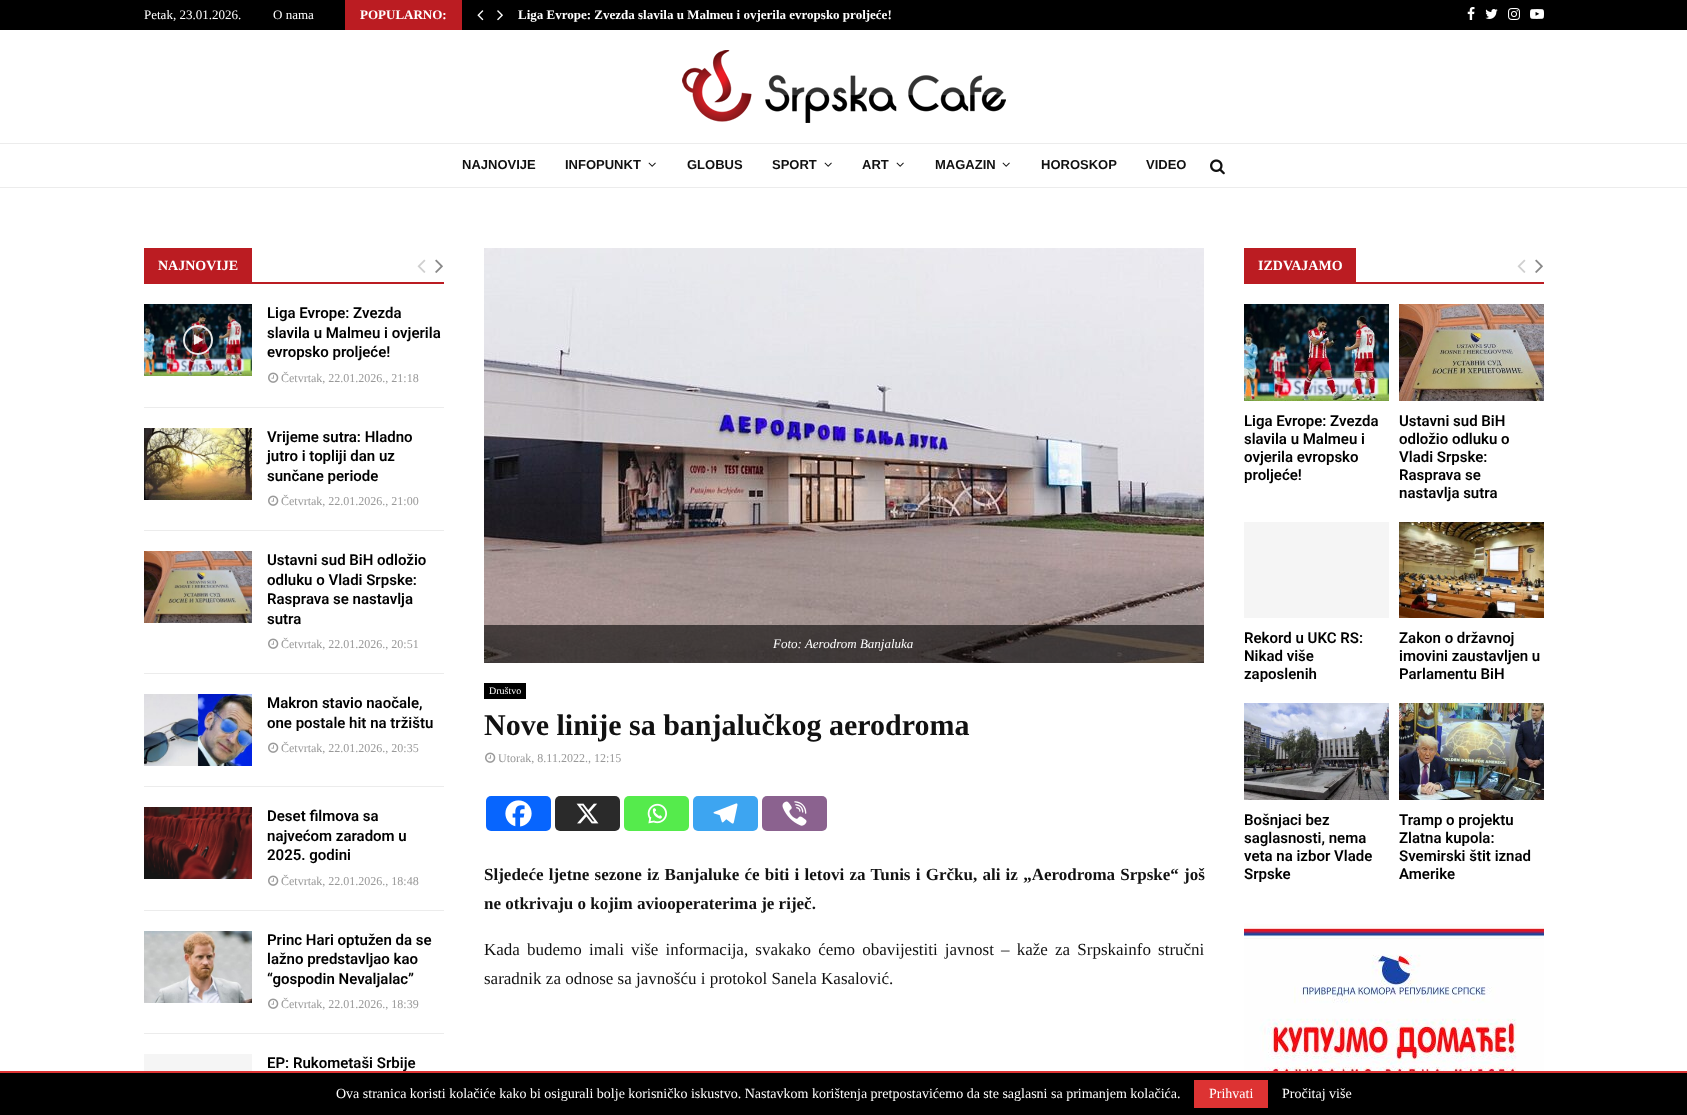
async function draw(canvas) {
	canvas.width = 1687;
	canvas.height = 1115;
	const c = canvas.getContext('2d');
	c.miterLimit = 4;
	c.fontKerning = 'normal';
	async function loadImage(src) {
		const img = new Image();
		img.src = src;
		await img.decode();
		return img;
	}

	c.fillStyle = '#fff';
	c.fillRect(0, 0, 1687, 1115);
	c.fillStyle = '#000';
	c.fillRect(0, 0, 1687, 30);
	c.font = '13px Liberation Serif';
	c.fillStyle = '#fff';
	c.fillText('Petak, 23.01.2026.', 144, 19);
	c.fillText('O nama', 273, 19);
	c.fillStyle = '#bb1c22';
	c.fillRect(345, 0, 117, 30);
	c.font = 'bold 13px Liberation Serif';
	c.fillStyle = '#fff';
	c.fillText('POPULARNO:', 360, 19);
	c.drawImage(await loadImage('img1.png'), 477, 10, 7, 11);
	c.drawImage(await loadImage('img2.png'), 497, 10, 6, 11);
	c.fillText('Liga Evrope: Zvezda slavila u Malmeu i ovjerila evropsko proljeće!', 518, 19);
	c.drawImage(await loadImage('img3.png'), 1467, 7, 8, 13);
	c.drawImage(await loadImage('img4.png'), 1485, 9, 13, 10);
	c.drawImage(await loadImage('img5.png'), 1508, 8, 12, 12);
	c.drawImage(await loadImage('img6.png'), 1530, 9, 14, 10);
	c.drawImage(await loadImage('img7.png'), 682, 50, 324, 73);
	c.fillStyle = '#ececec';
	c.fillRect(0, 187, 1687, 1);
	c.fillRect(0, 143, 1687, 1);
	c.font = 'bold 13px Liberation Sans';
	c.fillStyle = '#111';
	c.fillText('NAJNOVIJE', 462, 169);
	c.fillText('INFOPUNKT', 565, 169);
	c.drawImage(await loadImage('img8.png'), 648, 162, 8, 5);
	c.fillText('GLOBUS', 687, 169);
	c.fillText('SPORT', 772, 169);
	c.drawImage(await loadImage('img8.png'), 824, 162, 8, 5);
	c.fillText('ART', 862, 169);
	c.drawImage(await loadImage('img8.png'), 896, 162, 8, 5);
	c.fillText('MAGAZIN', 935, 169);
	c.drawImage(await loadImage('img8.png'), 1002, 162, 8, 5);
	c.fillText('HOROSKOP', 1041, 169);
	c.fillText('VIDEO', 1146, 169);
	c.drawImage(await loadImage('img9.png'), 1210, 159, 15, 16);
	c.fillStyle = '#bb1c22';
	c.fillRect(252, 282, 192, 2);
	c.fillRect(144, 248, 108, 36);
	c.font = 'bold 14px Liberation Serif';
	c.fillStyle = '#fff';
	c.fillText('NAJNOVIJE', 158, 270);
	c.drawImage(await loadImage('img10.png'), 417, 259, 9, 14);
	c.drawImage(await loadImage('img11.png'), 435, 259, 8, 14);
	c.fillStyle = '#ececec';
	c.fillRect(144, 407, 300, 1);
	c.drawImage(await loadImage('img12.png'), 144, 304, 108, 72);
	c.fillStyle = '#0000004d';
	c.beginPath();
	c.arc(198, 340, 15, 0, 2 * Math.PI);
	c.fill();
	c.beginPath();
	c.arc(198, 340, 14, 0, 2 * Math.PI);
	c.strokeStyle = '#ffffffe6';
	c.lineWidth = 2;
	c.stroke();
	c.drawImage(await loadImage('img13.png'), 194, 334, 10, 11);
	c.font = '600 15px Roboto';
	c.fillStyle = '#000';
	for (const [text, x, y] of [
		['Liga Evrope: Zvezda', 267, 318],
		['slavila u Malmeu i ovjerila', 267, 338],
		['evropsko proljeće!', 267, 357],
	]) {
		c.fillText(text, x, y);
	}
	c.drawImage(await loadImage('img14.png'), 268, 372, 11, 11);
	c.font = '12px Liberation Serif';
	c.fillStyle = '#999';
	c.fillText('Četvrtak, 22.01.2026., 21:18', 281, 382);
	c.fillStyle = '#ececec';
	c.fillRect(144, 530, 300, 1);
	c.drawImage(await loadImage('img15.png'), 144, 428, 108, 72);
	c.font = '600 15px Roboto';
	c.fillStyle = '#000';
	for (const [text, x, y] of [
		['Vrijeme sutra: Hladno', 267, 442],
		['jutro i topliji dan uz', 267, 461],
		['sunčane periode', 267, 481],
	]) {
		c.fillText(text, x, y);
	}
	c.drawImage(await loadImage('img14.png'), 268, 495, 11, 11);
	c.font = '12px Liberation Serif';
	c.fillStyle = '#999';
	c.fillText('Četvrtak, 22.01.2026., 21:00', 281, 505);
	c.fillStyle = '#ececec';
	c.fillRect(144, 673, 300, 1);
	c.drawImage(await loadImage('img16.png'), 144, 551, 108, 72);
	c.font = '600 15px Roboto';
	c.fillStyle = '#000';
	for (const [text, x, y] of [
		['Ustavni sud BiH odložio', 267, 565],
		['odluku o Vladi Srpske:', 267, 585],
		['Rasprava se nastavlja', 267, 604],
		['sutra', 267, 624],
	]) {
		c.fillText(text, x, y);
	}
	c.drawImage(await loadImage('img14.png'), 268, 638, 11, 11);
	c.font = '12px Liberation Serif';
	c.fillStyle = '#999';
	c.fillText('Četvrtak, 22.01.2026., 20:51', 281, 648);
	c.fillStyle = '#ececec';
	c.fillRect(144, 786, 300, 1);
	c.drawImage(await loadImage('img17.png'), 144, 694, 108, 72);
	c.font = '600 15px Roboto';
	c.fillStyle = '#000';
	c.fillText('Makron stavio naočale,', 267, 708);
	c.fillText('one postale hit na tržištu', 267, 728);
	c.drawImage(await loadImage('img14.png'), 268, 742, 11, 11);
	c.font = '12px Liberation Serif';
	c.fillStyle = '#999';
	c.fillText('Četvrtak, 22.01.2026., 20:35', 281, 752);
	c.fillStyle = '#ececec';
	c.fillRect(144, 910, 300, 1);
	c.drawImage(await loadImage('img18.png'), 144, 807, 108, 72);
	c.font = '600 15px Roboto';
	c.fillStyle = '#000';
	for (const [text, x, y] of [
		['Deset filmova sa', 267, 821],
		['najvećom zaradom u', 267, 841],
		['2025. godini', 267, 860],
	]) {
		c.fillText(text, x, y);
	}
	c.drawImage(await loadImage('img14.png'), 268, 875, 11, 11);
	c.font = '12px Liberation Serif';
	c.fillStyle = '#999';
	c.fillText('Četvrtak, 22.01.2026., 18:48', 281, 885);
	c.fillStyle = '#ececec';
	c.fillRect(144, 1033, 300, 1);
	c.drawImage(await loadImage('img19.png'), 144, 931, 108, 72);
	c.font = '600 15px Roboto';
	c.fillStyle = '#000';
	for (const [text, x, y] of [
		['Princ Hari optužen da se', 267, 945],
		['lažno predstavljao kao', 267, 964],
		['“gospodin Nevaljalac”', 267, 984],
	]) {
		c.fillText(text, x, y);
	}
	c.drawImage(await loadImage('img14.png'), 268, 998, 11, 11);
	c.font = '12px Liberation Serif';
	c.fillStyle = '#999';
	c.fillText('Četvrtak, 22.01.2026., 18:39', 281, 1008);
	c.fillStyle = '#f5f5f5';
	c.fillRect(144, 1054, 108, 17);
	c.font = '600 15px Roboto';
	c.fillStyle = '#000';
	c.fillText('EP: Rukometaši Srbije', 267, 1068);
	c.drawImage(await loadImage('img20.png'), 484, 248, 720, 415);
	c.fillStyle = '#00000099';
	c.fillRect(484, 625, 720, 38);
	c.font = 'italic 13px Liberation Serif';
	c.fillStyle = '#fff';
	c.fillText('Foto: Aerodrom Banjaluka', 773, 648);
	c.fillStyle = '#000';
	c.fillRect(484, 683, 42, 16);
	c.font = '10px Liberation Serif';
	c.fillStyle = '#fff';
	c.fillText('Društvo', 489, 694);
	c.font = 'bold 30px Liberation Serif';
	c.fillStyle = '#111';
	c.fillText('Nove linije sa banjalučkog aerodroma', 484, 735);
	c.drawImage(await loadImage('img14.png'), 485, 752, 11, 11);
	c.font = '12px Liberation Serif';
	c.fillStyle = '#999';
	c.fillText('Utorak, 8.11.2022., 12:15', 498, 762);
	c.fillStyle = '#0765fe';
	c.beginPath();
	c.roundRect(486, 796, 65, 35, 5);
	c.fill();
	c.drawImage(await loadImage('img21.png'), 505, 800, 27, 27);
	c.fillStyle = '#2a2a2a';
	c.beginPath();
	c.roundRect(555, 796, 65, 35, 5);
	c.fill();
	c.drawImage(await loadImage('img22.png'), 576, 803, 23, 21);
	c.fillStyle = '#55eb4c';
	c.beginPath();
	c.roundRect(624, 796, 65, 35, 5);
	c.fill();
	c.drawImage(await loadImage('img23.png'), 647, 803, 20, 21);
	c.fillStyle = '#3da5f1';
	c.beginPath();
	c.roundRect(693, 796, 65, 35, 5);
	c.fill();
	c.drawImage(await loadImage('img24.png'), 713, 803, 25, 21);
	c.fillStyle = '#8b628f';
	c.beginPath();
	c.roundRect(762, 796, 65, 35, 5);
	c.fill();
	c.drawImage(await loadImage('img25.png'), 782, 801, 25, 25);
	c.wordSpacing = '1px';
	c.font = 'bold 17px Liberation Serif';
	c.fillStyle = '#111';
	c.fillText('Sljedeće ljetne sezone iz Banjaluke će biti i letovi za Tunis i Grčku, ali iz „Aerodroma Srpske“ još', 484, 880);
	c.wordSpacing = '0px';
	c.fillText('ne otkrivaju o kojim aviooperaterima je riječ.', 484, 909);
	c.wordSpacing = '2.9px';
	c.font = '17px Liberation Serif';
	c.fillText('Kada budemo imali više informacija, svakako ćemo obavijestiti javnost – kaže za Srpskainfo stručni', 484, 955);
	c.wordSpacing = '0px';
	c.fillText('saradnik za odnose sa javnošću i protokol Sanela Kasalović.', 484, 984);
	c.fillStyle = '#bb1c22';
	c.fillRect(1356, 282, 188, 2);
	c.fillRect(1244, 248, 112, 36);
	c.font = 'bold 14px Liberation Serif';
	c.fillStyle = '#fff';
	c.fillText('IZDVAJAMO', 1258, 270);
	c.drawImage(await loadImage('img10.png'), 1517, 259, 9, 14);
	c.drawImage(await loadImage('img11.png'), 1535, 259, 8, 14);
	c.drawImage(await loadImage('img26.png'), 1244, 304, 145, 97);
	c.font = '600 15px Roboto';
	c.fillStyle = '#000';
	for (const [text, x, y] of [
		['Liga Evrope: Zvezda', 1244, 426],
		['slavila u Malmeu i', 1244, 444],
		['ovjerila evropsko', 1244, 462],
		['proljeće!', 1244, 480],
	]) {
		c.fillText(text, x, y);
	}
	c.drawImage(await loadImage('img27.png'), 1399, 304, 145, 97);
	for (const [text, x, y] of [
		['Ustavni sud BiH', 1399, 426],
		['odložio odluku o', 1399, 444],
		['Vladi Srpske:', 1399, 462],
		['Rasprava se', 1399, 480],
		['nastavlja sutra', 1399, 498],
	]) {
		c.fillText(text, x, y);
	}
	c.fillStyle = '#f5f5f5';
	c.fillRect(1244, 522, 145, 96);
	c.fillStyle = '#000';
	for (const [text, x, y] of [
		['Rekord u UKC RS:', 1244, 643],
		['Nikad više', 1244, 661],
		['zaposlenih', 1244, 679],
	]) {
		c.fillText(text, x, y);
	}
	c.drawImage(await loadImage('img28.png'), 1399, 522, 145, 96);
	for (const [text, x, y] of [
		['Zakon o državnoj', 1399, 643],
		['imovini zaustavljen u', 1399, 661],
		['Parlamentu BiH', 1399, 679],
	]) {
		c.fillText(text, x, y);
	}
	c.drawImage(await loadImage('img29.png'), 1244, 703, 145, 97);
	for (const [text, x, y] of [
		['Bošnjaci bez', 1244, 825],
		['saglasnosti, nema', 1244, 843],
		['veta na izbor Vlade', 1244, 861],
		['Srpske', 1244, 879],
	]) {
		c.fillText(text, x, y);
	}
	c.drawImage(await loadImage('img30.png'), 1399, 703, 145, 97);
	for (const [text, x, y] of [
		['Tramp o projektu', 1399, 825],
		['Zlatna kupola:', 1399, 843],
		['Svemirski štit iznad', 1399, 861],
		['Amerike', 1399, 879],
	]) {
		c.fillText(text, x, y);
	}
	c.drawImage(await loadImage('img31.png'), 1244, 923, 300, 148);
	c.fillRect(0, 1073, 1687, 42);
	c.fillStyle = '#d33';
	c.fillRect(0, 1071, 1687, 2);
	c.font = '14px Liberation Serif';
	c.fillStyle = '#fff';
	c.fillText('Ova stranica koristi kolačiće kako bi osigurali bolje korisničko iskustvo. Nastavkom korištenja pretpostavićemo da ste saglasni sa primanjem kolačića.', 336, 1098);
	c.fillStyle = '#d33';
	c.fillRect(1194, 1080, 74, 28);
	c.fillStyle = '#fff';
	c.fillText('Prihvati', 1209, 1098);
	c.fillText('Pročitaj više', 1282, 1098);
}

draw(document.querySelector('canvas'));
